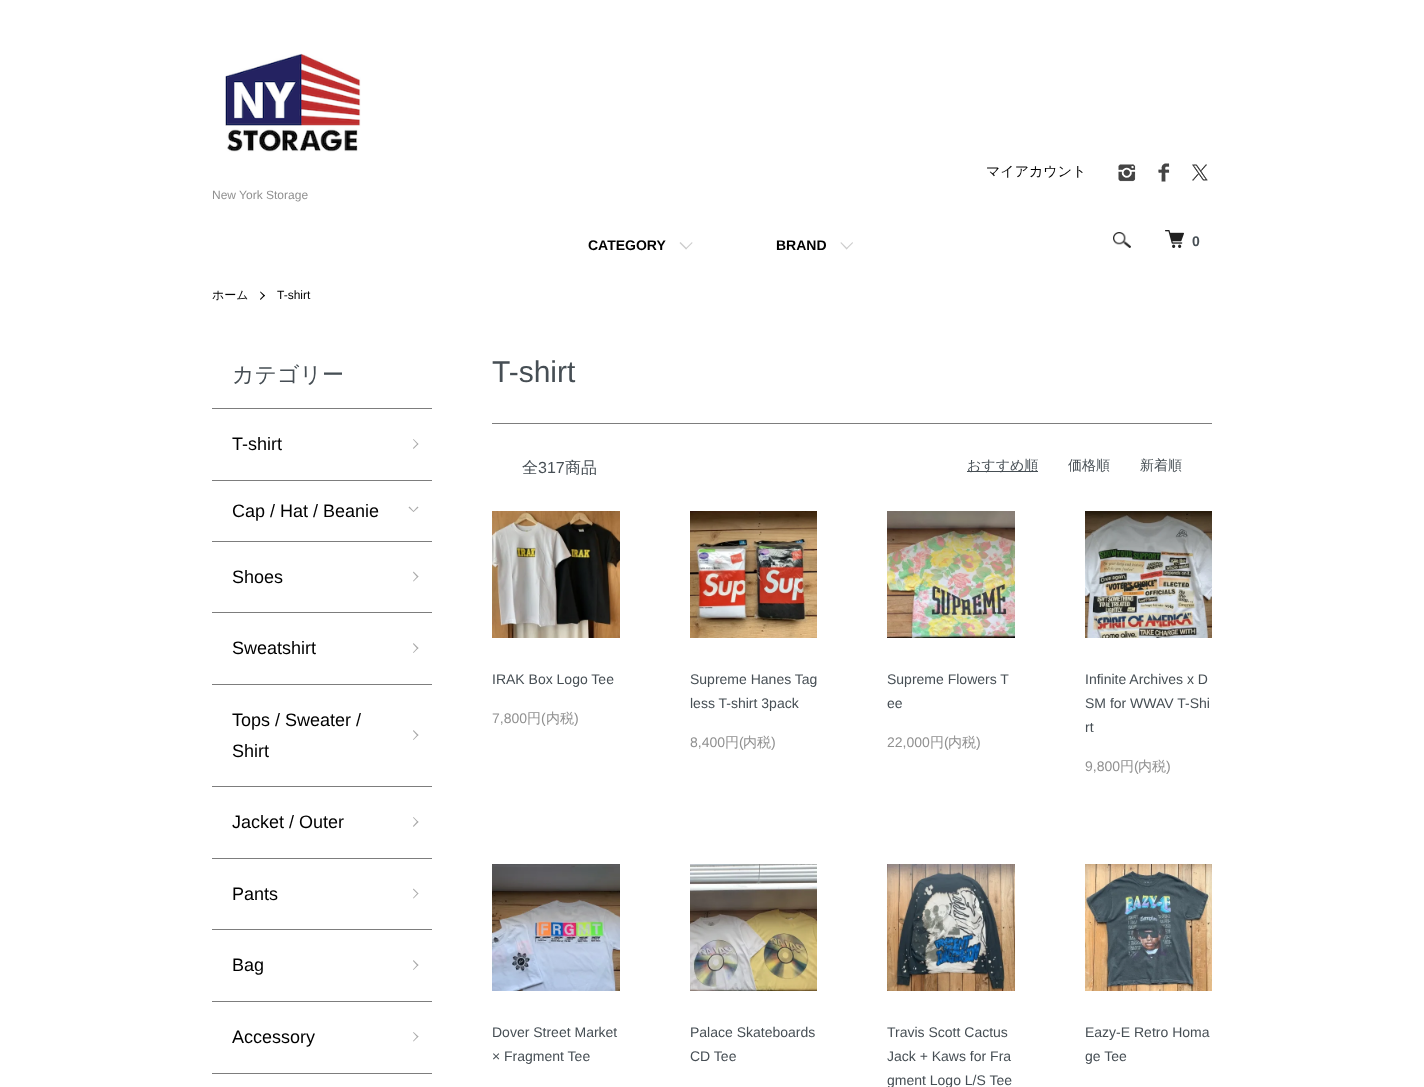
async function draw(canvas) {
	canvas.width = 1424;
	canvas.height = 1087;
	const c = canvas.getContext('2d');
	c.miterLimit = 4;
	c.fontKerning = 'normal';
	async function loadImage(src) {
		const img = new Image();
		img.src = src;
		await img.decode();
		return img;
	}

	c.fillStyle = '#fff';
	c.fillRect(0, 0, 1424, 1087);
	c.font = '500 14px WenQuanYi Zen Hei';
	c.fillStyle = '#000';
	c.fillText('マイアカウント', 986, 176);
	c.drawImage(await loadImage('img1.png'), 1118, 164, 18, 18);
	c.drawImage(await loadImage('img2.png'), 1158, 163, 12, 19);
	c.drawImage(await loadImage('img3.png'), 1192, 164, 16, 17);
	c.font = 'bold 14px Liberation Sans';
	c.fillText('CATEGORY', 588, 250);
	c.fillStyle = '#ccc';
	c.beginPath();
	c.moveTo(692, 242);
	c.lineTo(692.5, 243);
	c.lineTo(686, 249.5);
	c.lineTo(685.5, 248.5);
	c.closePath();
	c.fill();
	c.beginPath();
	c.moveTo(680.5, 242);
	c.lineTo(687, 248.5);
	c.lineTo(686, 249.5);
	c.lineTo(679.5, 243);
	c.closePath();
	c.fill();
	c.fillStyle = '#000';
	c.fillText('BRAND', 776, 250);
	c.fillStyle = '#ccc';
	c.beginPath();
	c.moveTo(852.5, 242);
	c.lineTo(853, 243);
	c.lineTo(846.5, 249.5);
	c.lineTo(846, 248.5);
	c.closePath();
	c.fill();
	c.beginPath();
	c.moveTo(841, 242);
	c.lineTo(847.5, 248.5);
	c.lineTo(846.5, 249.5);
	c.lineTo(840.5, 243);
	c.closePath();
	c.fill();
	c.drawImage(await loadImage('img4.png'), 225, 53, 136, 99);
	c.font = '12px Liberation Sans';
	c.fillStyle = '#909090';
	c.fillText('New York Storage', 212, 199);
	c.drawImage(await loadImage('img5.png'), 1113, 232, 18, 16);
	c.drawImage(await loadImage('img6.png'), 1165, 230, 19, 18);
	c.font = 'bold 14px Liberation Sans';
	c.fillStyle = '#464e54';
	c.fillText('0', 1192, 246);
	c.font = '500 12px WenQuanYi Zen Hei';
	c.fillStyle = '#000';
	c.fillText('ホーム', 212, 299);
	c.beginPath();
	c.moveTo(260, 292);
	c.lineTo(260.5, 291.5);
	c.lineTo(265, 295.5);
	c.lineTo(264, 296.5);
	c.closePath();
	c.fill();
	c.beginPath();
	c.moveTo(260, 299);
	c.lineTo(264, 295);
	c.lineTo(265, 295.5);
	c.lineTo(260.5, 300);
	c.closePath();
	c.fill();
	c.font = '12px Liberation Sans';
	c.fillText('T-shirt', 277, 299);
	c.font = '500 22px WenQuanYi Zen Hei';
	c.fillStyle = '#464e54';
	c.fillText('カテゴリー', 232, 382);
	c.fillStyle = '#7d7d7d';
	c.fillRect(212, 408, 220, 1);
	c.font = '18px Liberation Sans';
	c.fillStyle = '#000';
	c.fillText('T-shirt', 232, 450);
	c.fillStyle = '#aaa';
	c.beginPath();
	c.moveTo(413, 439.5);
	c.lineTo(413.5, 439);
	c.lineTo(418.5, 444);
	c.lineTo(417.5, 444.5);
	c.closePath();
	c.fill();
	c.beginPath();
	c.moveTo(413, 448);
	c.lineTo(417.5, 443.5);
	c.lineTo(418.5, 444);
	c.lineTo(413.5, 449);
	c.closePath();
	c.fill();
	c.fillStyle = '#7d7d7d';
	c.fillRect(212, 480, 220, 1);
	c.fillStyle = '#000';
	c.fillText('Cap / Hat / Beanie', 232, 517);
	c.fillStyle = '#aaa';
	c.beginPath();
	c.moveTo(417.5, 506.5);
	c.lineTo(418.5, 507.5);
	c.lineTo(413.5, 512);
	c.lineTo(413, 511.5);
	c.closePath();
	c.fill();
	c.beginPath();
	c.moveTo(409.5, 506.5);
	c.lineTo(414, 511.5);
	c.lineTo(413.5, 512);
	c.lineTo(408.5, 507.5);
	c.closePath();
	c.fill();
	c.fillStyle = '#7d7d7d';
	c.fillRect(212, 541, 220, 1);
	c.fillStyle = '#000';
	c.fillText('Shoes', 232, 583);
	c.fillStyle = '#aaa';
	c.beginPath();
	c.moveTo(413, 572.5);
	c.lineTo(413.5, 571.5);
	c.lineTo(418.5, 576.5);
	c.lineTo(417.5, 577.5);
	c.closePath();
	c.fill();
	c.beginPath();
	c.moveTo(413, 581);
	c.lineTo(417.5, 576);
	c.lineTo(418.5, 576.5);
	c.lineTo(413.5, 581.5);
	c.closePath();
	c.fill();
	c.fillStyle = '#7d7d7d';
	c.fillRect(212, 612, 220, 1);
	c.fillStyle = '#000';
	c.fillText('Sweatshirt', 232, 654);
	c.fillStyle = '#aaa';
	c.beginPath();
	c.moveTo(413, 644);
	c.lineTo(413.5, 643);
	c.lineTo(418.5, 648);
	c.lineTo(417.5, 649);
	c.closePath();
	c.fill();
	c.beginPath();
	c.moveTo(413, 652.5);
	c.lineTo(417.5, 647.5);
	c.lineTo(418.5, 648);
	c.lineTo(413.5, 653);
	c.closePath();
	c.fill();
	c.fillStyle = '#7d7d7d';
	c.fillRect(212, 684, 220, 1);
	c.fillStyle = '#000';
	c.fillText('Tops / Sweater /', 232, 726);
	c.fillStyle = '#aaa';
	c.beginPath();
	c.moveTo(413, 731);
	c.lineTo(413.5, 730);
	c.lineTo(418.5, 735);
	c.lineTo(417.5, 736);
	c.closePath();
	c.fill();
	c.beginPath();
	c.moveTo(413, 739.5);
	c.lineTo(417.5, 734.5);
	c.lineTo(418.5, 735);
	c.lineTo(413.5, 740);
	c.closePath();
	c.fill();
	c.fillStyle = '#000';
	c.fillText('Shirt', 232, 757);
	c.fillStyle = '#7d7d7d';
	c.fillRect(212, 786, 220, 1);
	c.fillStyle = '#000';
	c.fillText('Jacket / Outer', 232, 828);
	c.fillStyle = '#aaa';
	c.beginPath();
	c.moveTo(413, 817.5);
	c.lineTo(413.5, 817);
	c.lineTo(418.5, 822);
	c.lineTo(417.5, 822.5);
	c.closePath();
	c.fill();
	c.beginPath();
	c.moveTo(413, 826);
	c.lineTo(417.5, 821);
	c.lineTo(418.5, 822);
	c.lineTo(413.5, 827);
	c.closePath();
	c.fill();
	c.fillStyle = '#7d7d7d';
	c.fillRect(212, 858, 220, 1);
	c.fillStyle = '#000';
	c.fillText('Pants', 232, 900);
	c.fillStyle = '#aaa';
	c.beginPath();
	c.moveTo(413, 889.5);
	c.lineTo(413.5, 888.5);
	c.lineTo(418.5, 893.5);
	c.lineTo(417.5, 894);
	c.closePath();
	c.fill();
	c.beginPath();
	c.moveTo(413, 898);
	c.lineTo(417.5, 893);
	c.lineTo(418.5, 893.5);
	c.lineTo(413.5, 898.5);
	c.closePath();
	c.fill();
	c.fillStyle = '#7d7d7d';
	c.fillRect(212, 929, 220, 1);
	c.fillStyle = '#000';
	c.fillText('Bag', 232, 971);
	c.fillStyle = '#aaa';
	c.beginPath();
	c.moveTo(413, 961);
	c.lineTo(413.5, 960);
	c.lineTo(418.5, 965);
	c.lineTo(417.5, 966);
	c.closePath();
	c.fill();
	c.beginPath();
	c.moveTo(413, 969.5);
	c.lineTo(417.5, 964.5);
	c.lineTo(418.5, 965);
	c.lineTo(413.5, 970);
	c.closePath();
	c.fill();
	c.fillStyle = '#7d7d7d';
	c.fillRect(212, 1001, 220, 1);
	c.fillStyle = '#000';
	c.fillText('Accessory', 232, 1043);
	c.fillStyle = '#aaa';
	c.beginPath();
	c.moveTo(413, 1032.5);
	c.lineTo(413.5, 1032);
	c.lineTo(418.5, 1036.5);
	c.lineTo(417.5, 1037.5);
	c.closePath();
	c.fill();
	c.beginPath();
	c.moveTo(413, 1041);
	c.lineTo(417.5, 1036);
	c.lineTo(418.5, 1036.5);
	c.lineTo(413.5, 1041.5);
	c.closePath();
	c.fill();
	c.fillStyle = '#7d7d7d';
	c.fillRect(212, 1073, 220, 1);
	c.font = '30px Liberation Sans';
	c.fillStyle = '#464e54';
	c.fillText('T-shirt', 492, 382);
	c.fillStyle = '#7d7d7d';
	c.fillRect(492, 423, 720, 1);
	c.font = '500 16px WenQuanYi Zen Hei';
	c.fillStyle = '#464e54';
	c.fillText('全', 522, 473);
	c.font = '16px Liberation Sans';
	c.fillText('317', 538, 473);
	c.font = '500 16px WenQuanYi Zen Hei';
	c.fillText('商品', 565, 473);
	c.fillRect(967, 471, 71, 1);
	c.font = '500 14px WenQuanYi Zen Hei';
	for (const [text, x, y] of [
		['おすすめ順', 967, 470],
		['価格順', 1068, 470],
		['新着順', 1140, 470],
	]) {
		c.fillText(text, x, y);
	}
	c.drawImage(await loadImage('img7.png'), 492, 511, 128, 127);
	c.font = '14px Liberation Sans';
	c.fillText('IRAK Box Logo Tee', 492, 684);
	c.fillStyle = '#909090';
	c.fillText('7,800', 492, 723);
	c.font = '500 14px WenQuanYi Zen Hei';
	c.fillText('円', 527, 723);
	c.font = '14px Liberation Sans';
	c.fillText('(', 541, 723);
	c.font = '500 14px WenQuanYi Zen Hei';
	c.fillText('内税', 546, 723);
	c.font = '14px Liberation Sans';
	c.fillText(')', 574, 723);
	c.drawImage(await loadImage('img8.png'), 690, 511, 127, 127);
	c.fillStyle = '#464e54';
	c.fillText('Supreme Hanes Tag', 690, 684);
	c.fillText('less T-shirt 3pack', 690, 708);
	c.fillStyle = '#909090';
	c.fillText('8,400', 690, 747);
	c.font = '500 14px WenQuanYi Zen Hei';
	c.fillText('円', 725, 747);
	c.font = '14px Liberation Sans';
	c.fillText('(', 739, 747);
	c.font = '500 14px WenQuanYi Zen Hei';
	c.fillText('内税', 743, 747);
	c.font = '14px Liberation Sans';
	c.fillText(')', 771, 747);
	c.drawImage(await loadImage('img9.png'), 887, 511, 128, 127);
	c.fillStyle = '#464e54';
	c.fillText('Supreme Flowers T', 887, 684);
	c.fillText('ee', 887, 708);
	c.fillStyle = '#909090';
	c.fillText('22,000', 887, 747);
	c.font = '500 14px WenQuanYi Zen Hei';
	c.fillText('円', 930, 747);
	c.font = '14px Liberation Sans';
	c.fillText('(', 944, 747);
	c.font = '500 14px WenQuanYi Zen Hei';
	c.fillText('内税', 948, 747);
	c.font = '14px Liberation Sans';
	c.fillText(')', 976, 747);
	c.drawImage(await loadImage('img10.png'), 1085, 511, 127, 127);
	c.fillStyle = '#464e54';
	for (const [text, x, y] of [
		['Infinite Archives x D', 1085, 684],
		['SM for WWAV T-Shi', 1085, 708],
		['rt', 1085, 732],
	]) {
		c.fillText(text, x, y);
	}
	c.fillStyle = '#909090';
	c.fillText('9,800', 1085, 771);
	c.font = '500 14px WenQuanYi Zen Hei';
	c.fillText('円', 1120, 771);
	c.font = '14px Liberation Sans';
	c.fillText('(', 1134, 771);
	c.font = '500 14px WenQuanYi Zen Hei';
	c.fillText('内税', 1138, 771);
	c.font = '14px Liberation Sans';
	c.fillText(')', 1166, 771);
	c.drawImage(await loadImage('img11.png'), 492, 864, 128, 127);
	c.fillStyle = '#464e54';
	c.fillText('Dover Street Market', 492, 1037);
	c.fillText('× Fragment Tee', 492, 1061);
	c.drawImage(await loadImage('img12.png'), 690, 864, 127, 127);
	c.fillText('Palace Skateboards', 690, 1037);
	c.fillText('CD Tee', 690, 1061);
	c.drawImage(await loadImage('img13.png'), 887, 864, 128, 127);
	for (const [text, x, y] of [
		['Travis Scott Cactus', 887, 1037],
		['Jack + Kaws for Fra', 887, 1061],
		['gment Logo L/S Tee', 887, 1085],
	]) {
		c.fillText(text, x, y);
	}
	c.drawImage(await loadImage('img14.png'), 1085, 864, 127, 127);
	c.fillText('Eazy-E Retro Homa', 1085, 1037);
	c.fillText('ge Tee', 1085, 1061);
}

draw(document.querySelector('canvas'));
